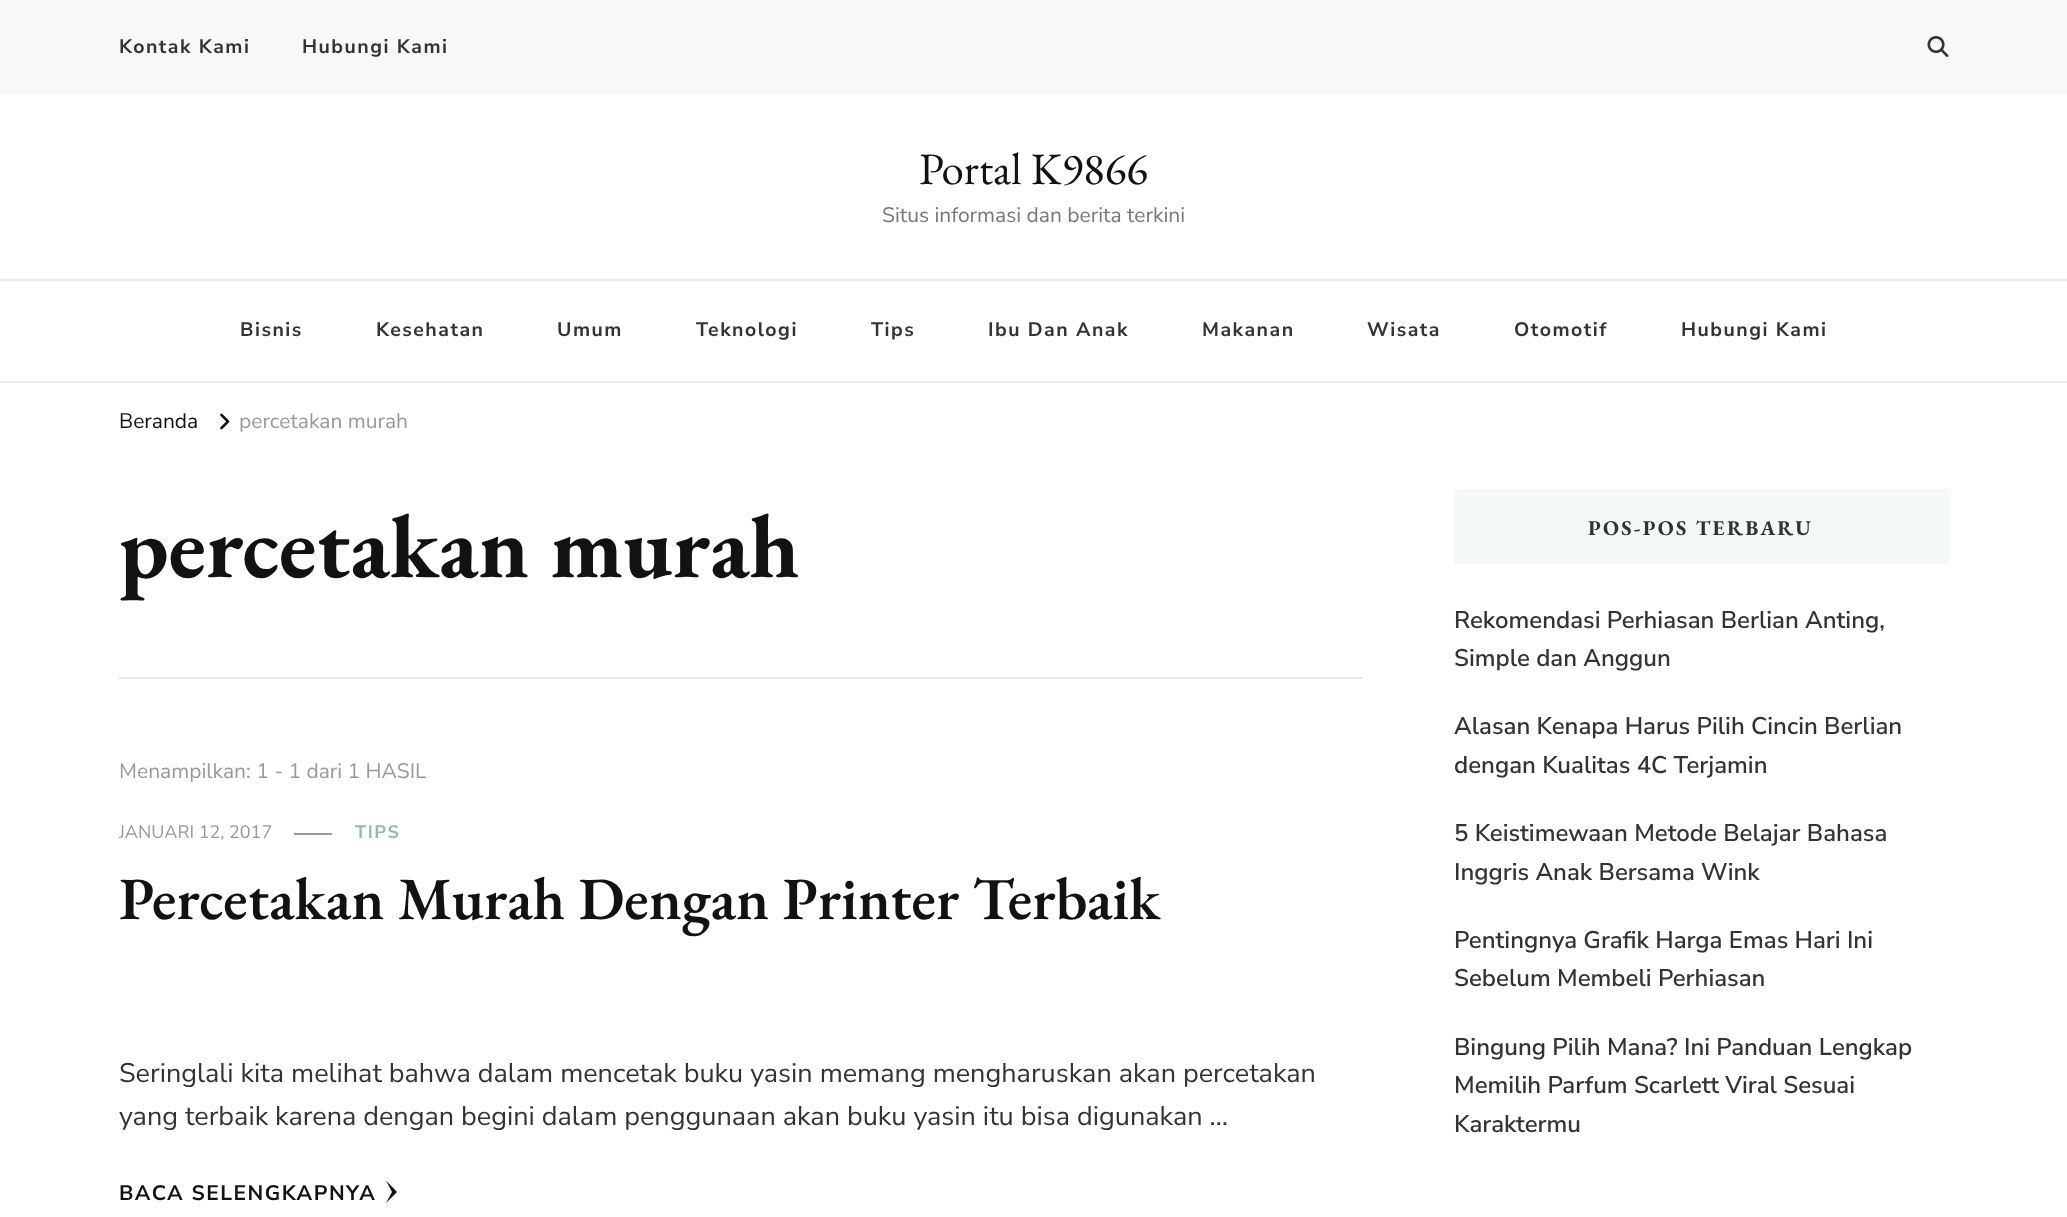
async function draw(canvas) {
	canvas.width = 2067;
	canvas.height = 1217;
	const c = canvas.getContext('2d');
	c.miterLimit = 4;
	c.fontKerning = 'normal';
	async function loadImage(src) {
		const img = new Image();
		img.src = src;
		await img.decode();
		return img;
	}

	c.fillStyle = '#fff';
	c.fillRect(0, 0, 2067, 1217);
	c.fillStyle = '#f8f8f8';
	c.fillRect(0, 0, 2067, 95);
	c.letterSpacing = '1.5px';
	c.font = 'bold 19.5px Nunito Sans';
	c.fillStyle = '#333';
	c.fillText('Kontak Kami', 119, 53);
	c.fillText('Hubungi Kami', 302, 53);
	c.drawImage(await loadImage('img1.png'), 1927, 36, 22, 21);
	c.letterSpacing = '0px';
	c.font = '45px EB Garamond';
	c.fillStyle = '#121212';
	c.fillText('Portal K9866', 919, 184);
	c.font = '21px Nunito Sans';
	c.fillStyle = '#777';
	c.fillText('Situs informasi dan berita terkini', 882, 222);
	c.fillStyle = '#ededed';
	c.fillRect(0, 279, 2067, 2);
	c.fillRect(0, 381, 2067, 2);
	c.letterSpacing = '1.5px';
	c.font = 'bold 19.5px Nunito Sans';
	c.fillStyle = '#333';
	for (const [text, x, y] of [
		['Bisnis', 240, 336],
		['Kesehatan', 376, 336],
		['Umum', 557, 336],
		['Teknologi', 696, 336],
		['Tips', 871, 336],
		['Ibu Dan Anak', 988, 336],
		['Makanan', 1202, 336],
		['Wisata', 1367, 336],
		['Otomotif', 1514, 336],
		['Hubungi Kami', 1681, 336],
	]) {
		c.fillText(text, x, y);
	}
	c.letterSpacing = '0px';
	c.font = '21px Nunito Sans';
	c.fillStyle = '#121212';
	c.fillText('Beranda', 119, 428);
	c.drawImage(await loadImage('img2.png'), 220, 413, 10, 17);
	c.fillStyle = '#999';
	c.fillText('percetakan murah', 239, 428);
	c.fillStyle = '#e6e6e6';
	c.fillRect(119, 677, 1243, 2);
	c.font = 'bold 90px EB Garamond';
	c.fillStyle = '#121212';
	c.fillText('percetakan murah', 119, 577);
	c.font = '21px Nunito Sans';
	c.fillStyle = '#999';
	c.fillText('Menampilkan: 1 - 1 dari 1 HASIL', 119, 778);
	c.font = '18px Nunito Sans';
	c.fillText('JANUARI 12, 2017', 119, 838);
	c.fillRect(294, 833, 38, 2);
	c.letterSpacing = '1.5px';
	c.font = 'bold 18px Nunito Sans';
	c.fillStyle = '#90bab5';
	c.fillText('TIPS', 355, 838);
	c.letterSpacing = '0px';
	c.font = '600 59.9px EB Garamond';
	c.fillStyle = '#121212';
	c.fillText('Percetakan Murah Dengan Printer Terbaik', 119, 919);
	c.font = '27px Nunito Sans';
	c.fillStyle = '#333';
	c.fillText('Seringlali kita melihat bahwa dalam mencetak buku yasin memang mengharuskan akan percetakan', 119, 1082);
	c.fillText('yang terbaik karena dengan begini dalam penggunaan akan buku yasin itu bisa digunakan …', 119, 1125);
	c.letterSpacing = '1.5px';
	c.font = 'bold 21px Nunito Sans';
	c.fillStyle = '#121212';
	c.fillText('BACA SELENGKAPNYA', 119, 1200);
	c.beginPath();
	c.moveTo(397, 1192);
	c.lineTo(386, 1203);
	c.lineTo(392, 1192);
	c.lineTo(386, 1180.5);
	c.closePath();
	c.fill();
	c.fillStyle = '#f4f8f8';
	c.fillRect(1454, 489, 495, 75);
	c.letterSpacing = '2.25px';
	c.font = 'bold 21px EB Garamond';
	c.fillStyle = '#333';
	c.fillText('POS-POS TERBARU', 1588, 535);
	c.letterSpacing = '0px';
	c.font = '600 24px Nunito Sans';
	for (const [text, x, y] of [
		['Rekomendasi Perhiasan Berlian Anting,', 1454, 628],
		['Simple dan Anggun', 1454, 666],
		['Alasan Kenapa Harus Pilih Cincin Berlian', 1454, 734],
		['dengan Kualitas 4C Terjamin', 1454, 773],
		['5 Keistimewaan Metode Belajar Bahasa', 1454, 841],
		['Inggris Anak Bersama Wink', 1454, 880],
		['Pentingnya Grafik Harga Emas Hari Ini', 1454, 948],
		['Sebelum Membeli Perhiasan', 1454, 986],
		['Bingung Pilih Mana? Ini Panduan Lengkap', 1454, 1055],
		['Memilih Parfum Scarlett Viral Sesuai', 1454, 1093],
		['Karaktermu', 1454, 1132],
	]) {
		c.fillText(text, x, y);
	}
}

draw(document.querySelector('canvas'));
